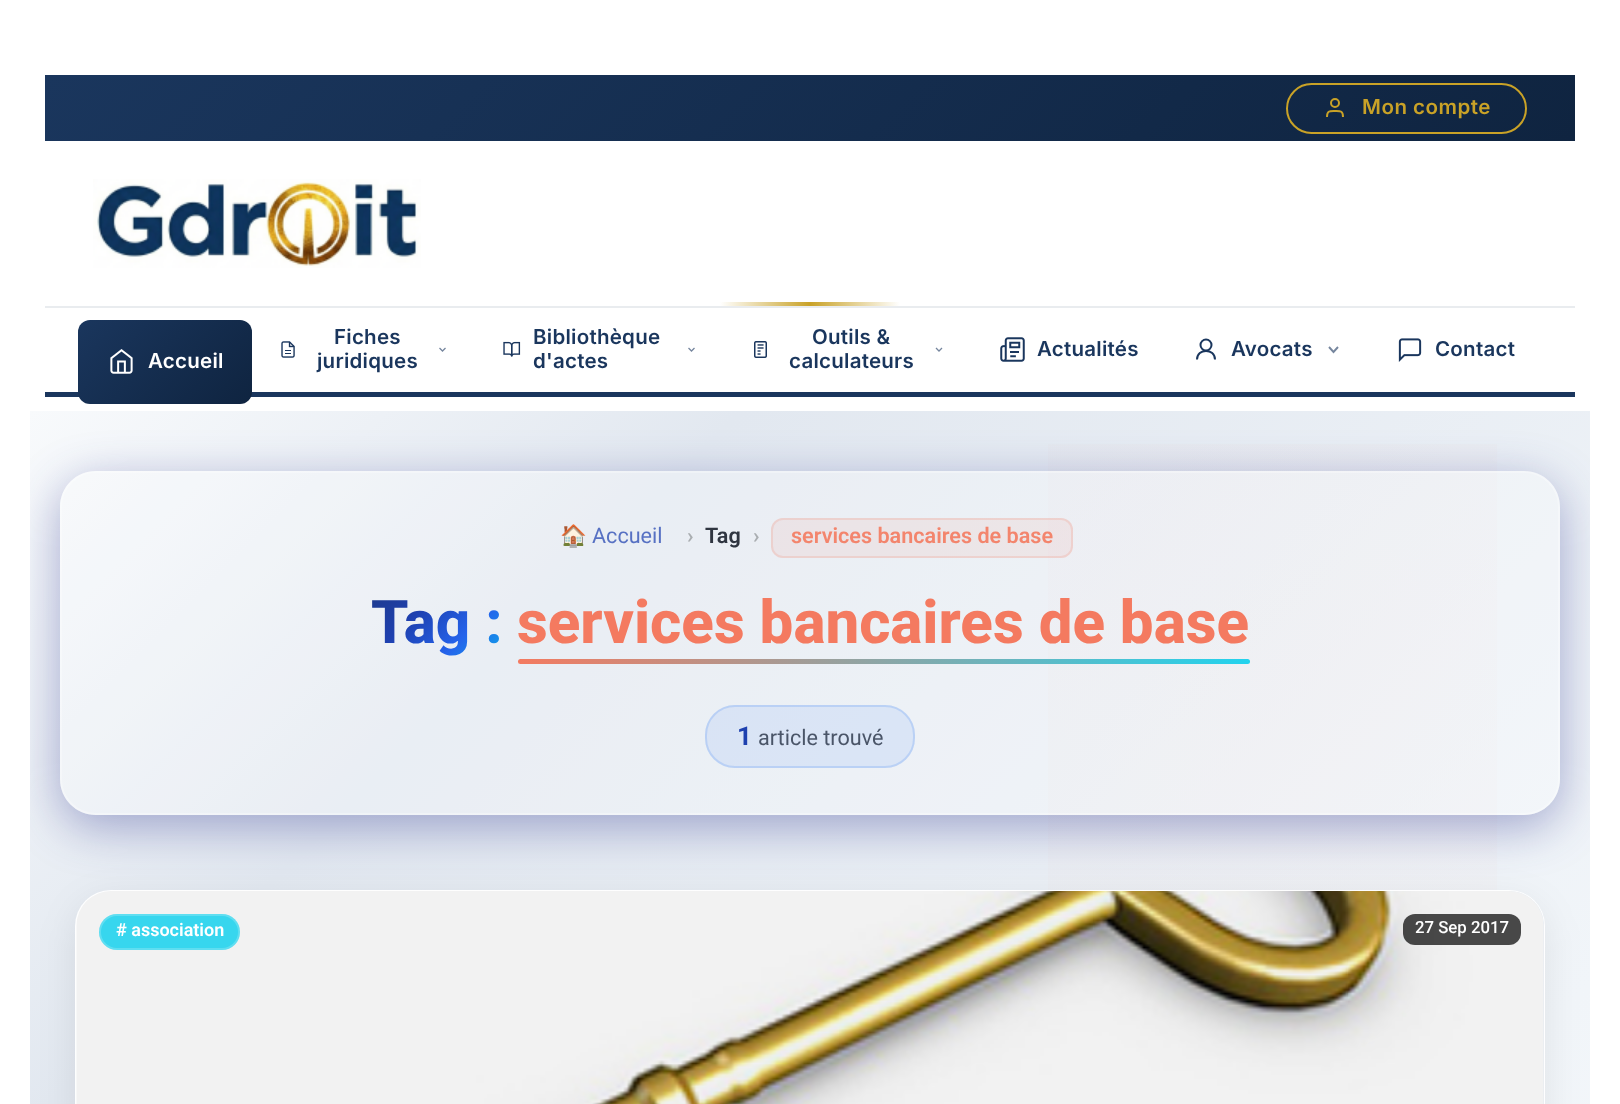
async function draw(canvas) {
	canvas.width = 1620;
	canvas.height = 1104;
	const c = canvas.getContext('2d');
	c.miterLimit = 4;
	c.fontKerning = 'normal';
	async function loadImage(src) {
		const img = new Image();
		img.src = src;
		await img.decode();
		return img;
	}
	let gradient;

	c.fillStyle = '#fff';
	c.fillRect(0, 0, 1620, 1104);
	gradient = c.createLinearGradient(411, -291, 1209, 507);
	gradient.addColorStop(0, '#1a365d');
	gradient.addColorStop(1, '#0f2440');
	c.fillStyle = gradient;
	c.fillRect(45, 75, 1530, 66);
	c.beginPath();
	c.roundRect(1287, 84, 239, 49, 24.5);
	c.strokeStyle = '#c9a227';
	c.lineWidth = 2;
	c.stroke();
	c.beginPath();
	c.moveTo(1343, 117);
	c.bezierCurveTo(1343, 110.5, 1340.5, 111, 1335, 111);
	c.bezierCurveTo(1329.5, 111, 1327, 110.5, 1327, 117);
	c.stroke();
	c.beginPath();
	c.arc(1335, 103, 4, 0, 2 * Math.PI);
	c.stroke();
	c.letterSpacing = '0.5px';
	c.font = '600 20.5px Inter';
	c.fillStyle = '#c9a227';
	c.fillText('Mon compte', 1362, 114);
	c.drawImage(await loadImage('img1.png'), 93, 179, 328, 89);
	gradient = c.createLinearGradient(720, 304, 900, 304);
	gradient.addColorStop(0, '#fff');
	gradient.addColorStop(0.5, '#c9a227');
	gradient.addColorStop(1, '#fff');
	c.fillStyle = gradient;
	c.fillRect(720, 302, 180, 4);
	c.fillStyle = '#e9ecef';
	c.fillRect(45, 306, 1530, 2);
	c.fillStyle = '#1a365d';
	c.fillRect(45, 392, 1530, 5);
	c.letterSpacing = '0.25px';
	c.fillText('Fiches', 334, 344);
	c.drawImage(await loadImage('img2.png'), 281, 341, 14, 17);
	c.beginPath();
	c.moveTo(439.5, 348);
	c.lineTo(442.5, 351);
	c.lineTo(445.5, 348);
	c.strokeStyle = '#76869e';
	c.lineWidth = 1.3;
	c.stroke();
	c.fillText('juridiques', 317, 368);
	c.drawImage(await loadImage('img3.png'), 503, 341, 18, 16);
	c.fillText('Bibliothèque', 533, 344);
	c.beginPath();
	c.moveTo(688.5, 348);
	c.lineTo(691.5, 351);
	c.lineTo(694.5, 348);
	c.stroke();
	c.fillText('d\'actes', 533, 368);
	c.fillText('Outils &', 812, 344);
	c.drawImage(await loadImage('img4.png'), 754, 341, 13, 17);
	c.beginPath();
	c.moveTo(936, 348);
	c.lineTo(939, 351);
	c.lineTo(942, 348);
	c.stroke();
	c.fillText('calculateurs', 789, 368);
	c.drawImage(await loadImage('img5.png'), 1000, 337, 25, 25);
	c.fillText('Actualités', 1037, 356);
	c.beginPath();
	c.arc(1206, 345, 5.5, 0, 2 * Math.PI);
	c.strokeStyle = '#1a365d';
	c.lineWidth = 2;
	c.stroke();
	c.beginPath();
	c.moveTo(1215, 359.5);
	c.bezierCurveTo(1215, 348, 1197, 348, 1197, 359.5);
	c.stroke();
	c.fillText('Avocats', 1231, 356);
	c.beginPath();
	c.moveTo(1329, 347);
	c.lineTo(1333.5, 352);
	c.lineTo(1338, 347);
	c.strokeStyle = '#76869e';
	c.lineWidth = 1.9;
	c.stroke();
	c.drawImage(await loadImage('img6.png'), 1398, 338, 24, 24);
	c.fillText('Contact', 1435, 356);
	gradient = c.createLinearGradient(101, 297, 230, 426);
	gradient.addColorStop(0, '#1a365d');
	gradient.addColorStop(1, '#0f2440');
	c.fillStyle = gradient;
	c.beginPath();
	c.roundRect(78, 320, 174, 84, 12);
	c.fill();
	c.drawImage(await loadImage('img7.png'), 110, 349, 23, 25);
	c.fillStyle = '#fff';
	c.fillText('Accueil', 148, 368);
	gradient = c.createLinearGradient(99, 342, 1521, 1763);
	gradient.addColorStop(0, '#f8fafc');
	gradient.addColorStop(0.25, '#e2e8f0');
	gradient.addColorStop(0.75, '#f1f5f9');
	gradient.addColorStop(1, '#f8fafc');
	c.fillStyle = gradient;
	c.fillRect(30, 411, 1560, 693);
	gradient = c.createRadialGradient(1278, 668, 0, 1278, 668, 1616);
	gradient.addColorStop(0, '#f47a6008');
	gradient.addColorStop(0.5, '#f47a6000');
	c.fillStyle = gradient;
	c.fillRect(1048, 444, 449, 447);
	c.save();
	c.beginPath();
	c.rect(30, 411, 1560, 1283);
	c.clip();
	c.beginPath();
	c.moveTo(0, 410);
	c.lineTo(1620, 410);
	c.lineTo(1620, 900);
	c.lineTo(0, 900);
	c.closePath();
	c.moveTo(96, 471);
	c.lineTo(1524, 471);
	c.bezierCurveTo(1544, 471, 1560, 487, 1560, 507);
	c.lineTo(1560, 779);
	c.bezierCurveTo(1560, 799, 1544, 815, 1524, 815);
	c.lineTo(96, 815);
	c.bezierCurveTo(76, 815, 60, 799, 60, 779);
	c.lineTo(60, 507);
	c.bezierCurveTo(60, 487, 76, 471, 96, 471);
	c.closePath();
	c.clip('evenodd');
	c.fillStyle = '#1f26875e';
	c.filter = 'blur(24px)';
	c.beginPath();
	c.roundRect(60, 483, 1500, 344, 36);
	c.fill();
	c.filter = 'none';
	c.restore();
	c.fillStyle = '#ffffff40';
	c.beginPath();
	c.roundRect(60, 471, 1500, 344, 36);
	c.fill();
	c.beginPath();
	c.roundRect(61, 472, 1498, 342, 35);
	c.strokeStyle = '#ffffff4d';
	c.lineWidth = 2;
	c.stroke();
	c.letterSpacing = '0px';
	c.font = '21.6px Noto Color Emoji';
	c.fillStyle = '#5771c3';
	c.fillText('🏠', 560, 543);
	c.font = '21.6px Roboto';
	c.fillText('Accueil', 592, 543);
	c.font = '600 21.6px Roboto';
	c.fillStyle = '#aaaeb1';
	c.fillText('›', 687, 543);
	c.fillStyle = '#2f3540';
	c.fillText('Tag', 705, 543);
	c.fillStyle = '#aaaeb1';
	c.fillText('›', 753, 543);
	c.fillStyle = '#f47a6017';
	c.beginPath();
	c.roundRect(771, 518, 302, 40, 12);
	c.fill();
	c.beginPath();
	c.roundRect(772, 519, 300, 38, 11);
	c.strokeStyle = '#f47a602e';
	c.stroke();
	c.fillStyle = '#f3856d';
	c.fillText('services bancaires de base', 791, 543);
	c.font = '800 60px Roboto';
	gradient = c.createLinearGradient(386, 572, 487, 673);
	gradient.addColorStop(0, '#1e3a8a');
	gradient.addColorStop(0.35, '#1e40af');
	gradient.addColorStop(0.7, '#2563eb');
	gradient.addColorStop(1, '#0ea5e9');
	c.fillStyle = gradient;
	c.fillText('Tag :', 371, 643);
	c.fillStyle = '#f47a60';
	c.fillText('services bancaires de base', 517, 643);
	gradient = c.createLinearGradient(518, 661, 1250, 661);
	gradient.addColorStop(0, '#f47a60');
	gradient.addColorStop(1, '#22d3ee');
	c.fillStyle = gradient;
	c.beginPath();
	c.roundRect(518, 659, 732, 5, 2.5);
	c.fill();
	c.fillStyle = '#3b82f61a';
	c.beginPath();
	c.roundRect(705, 705, 210, 63, 30);
	c.fill();
	c.beginPath();
	c.roundRect(706, 706, 208, 61, 29);
	c.strokeStyle = '#3b82f633';
	c.stroke();
	c.font = 'bold 26px Roboto';
	c.fillStyle = '#1e40af';
	c.fillText('1', 737, 745);
	c.font = '21.6px Roboto';
	c.fillStyle = '#4a5568';
	c.fillText('article trouvé', 758, 745);
	c.fillStyle = '#00000014';
	c.filter = 'blur(19px)';
	c.beginPath();
	c.roundRect(75, 902, 1470, 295, 36);
	c.fill();
	c.filter = 'none';
	c.fillStyle = '#fffffff2';
	c.beginPath();
	c.roundRect(75, 890, 1470, 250, 36);
	c.fill();
	gradient = c.createLinearGradient(353, 614, 1267, 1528);
	gradient.addColorStop(0, '#f8fafc');
	gradient.addColorStop(1, '#e2e8f0');
	c.fillStyle = gradient;
	c.beginPath();
	c.moveTo(112, 891);
	c.lineTo(1509, 891);
	c.bezierCurveTo(1528.5, 891, 1544, 906.5, 1544, 926);
	c.lineTo(1544, 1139);
	c.lineTo(77, 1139);
	c.lineTo(77, 926);
	c.bezierCurveTo(77, 906.5, 92.5, 891, 112, 891);
	c.closePath();
	c.fill();
	c.drawImage(await loadImage('img8.png'), 76, 891, 1468, 213);
	c.fillStyle = '#37d6ee';
	c.beginPath();
	c.roundRect(99, 914, 141, 36, 18);
	c.fill();
	c.beginPath();
	c.roundRect(100, 915, 139, 34, 17);
	c.strokeStyle = '#ffffff33';
	c.stroke();
	c.font = '600 18px Roboto';
	c.fillStyle = '#fff';
	c.fillText('# association', 116, 936);
	c.fillStyle = '#000000b3';
	c.beginPath();
	c.roundRect(1403, 914, 118, 31, 12);
	c.fill();
	c.font = '500 16.75px Roboto';
	c.fillStyle = '#fff';
	c.fillText('27 Sep 2017', 1415, 933);
}

draw(document.querySelector('canvas'));
